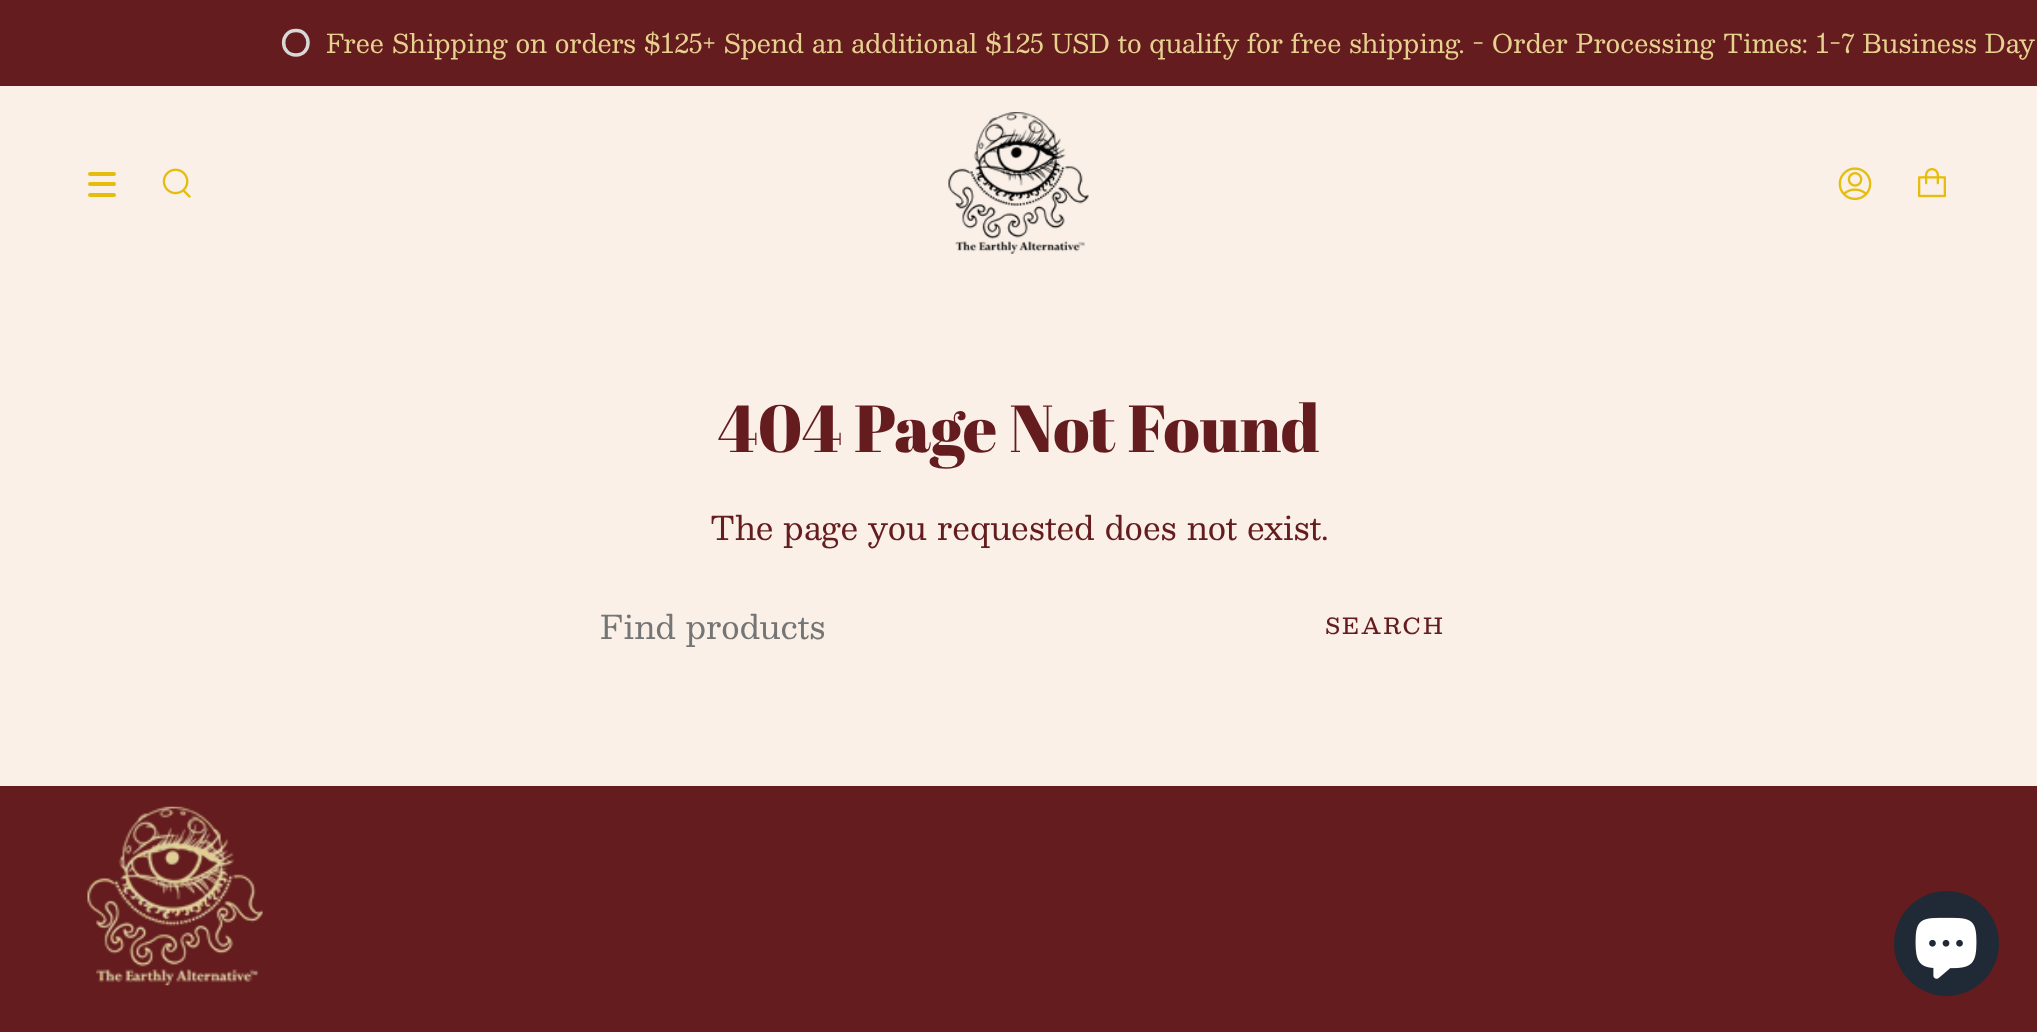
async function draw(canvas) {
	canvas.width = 2037;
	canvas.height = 1032;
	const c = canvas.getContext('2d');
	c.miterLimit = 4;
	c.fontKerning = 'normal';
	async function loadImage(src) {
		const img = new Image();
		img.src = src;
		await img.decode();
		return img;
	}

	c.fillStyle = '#faf0e7';
	c.fillRect(0, 0, 2037, 1032);
	c.fillStyle = '#651c1e';
	c.fillRect(0, 0, 2037, 86);
	c.beginPath();
	c.moveTo(296, 30.5);
	c.bezierCurveTo(279.5, 30.5, 279.5, 55, 296, 55);
	c.bezierCurveTo(312, 55, 312, 30.5, 296, 30.5);
	c.closePath();
	c.strokeStyle = '#d8d8d8';
	c.lineWidth = 3.5;
	c.stroke();
	c.font = '25.75px Besley';
	c.fillStyle = '#e6d18f';
	c.fillText('Free Shipping on orders $125+ Spend an additional $125 USD to qualify for free shipping. - Order Processing Times: 1-7 Business Day', 326, 53);
	c.fillStyle = '#e6bd0e';
	c.beginPath();
	c.roundRect(88, 172, 28, 4, 2);
	c.fill();
	c.beginPath();
	c.roundRect(88, 182, 28, 4, 2);
	c.fill();
	c.beginPath();
	c.roundRect(88, 193, 28, 4, 2);
	c.fill();
	c.drawImage(await loadImage('img1.png'), 162, 168, 29, 30);
	c.drawImage(await loadImage('img2.png'), 948, 112, 141, 142);
	c.drawImage(await loadImage('img3.png'), 1838, 167, 34, 34);
	c.drawImage(await loadImage('img4.png'), 1918, 168, 28, 30);
	c.font = '66.5px Abril Fatface';
	c.fillStyle = '#651c1e';
	c.fillText('404 Page Not Found', 718, 452);
	c.font = '32.25px Besley';
	c.fillText('The page you requested does not exist.', 710, 540);
	c.fillStyle = '#757575';
	c.fillText('Find products', 600, 639);
	c.letterSpacing = '2.5px';
	c.font = '500 22px Besley';
	c.fillStyle = '#651c1e';
	c.fillText('SEARCH', 1325, 634);
	c.fillRect(0, 786, 2037, 246);
	c.drawImage(await loadImage('img5.png'), 87, 806, 176, 180);
	c.fillStyle = '#202a36';
	c.beginPath();
	c.arc(1946.5, 943.5, 52.5, 0, 2 * Math.PI);
	c.fill();
	c.drawImage(await loadImage('img6.png'), 1915, 917, 62, 62);
}

draw(document.querySelector('canvas'));
